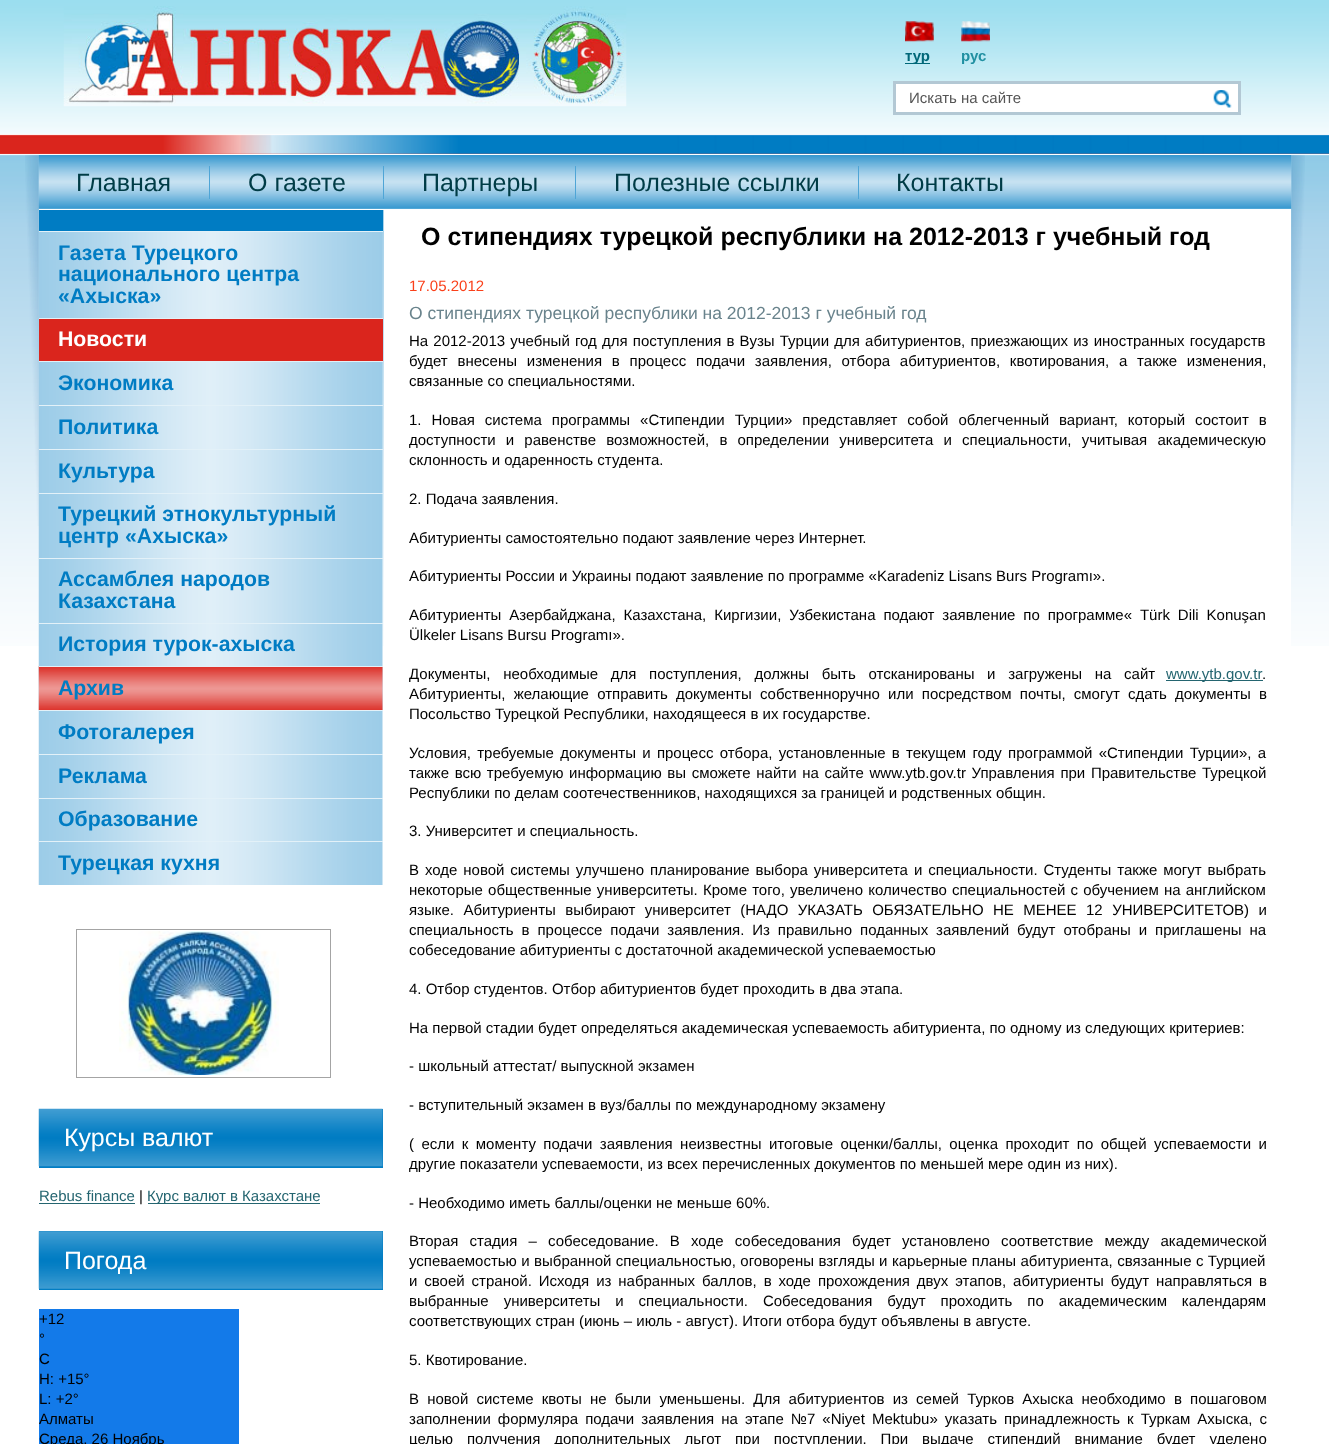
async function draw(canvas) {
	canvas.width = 1329;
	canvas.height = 1444;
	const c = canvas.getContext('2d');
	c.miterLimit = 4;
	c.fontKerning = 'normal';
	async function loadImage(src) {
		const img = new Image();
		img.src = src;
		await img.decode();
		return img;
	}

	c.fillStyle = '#fff';
	c.fillRect(0, 0, 1329, 1444);
	c.drawImage(await loadImage('img1.png'), 0, 0, 1329, 646);
	c.drawImage(await loadImage('img2.png'), 25, 155, 1280, 371);
	c.drawImage(await loadImage('img3.png'), 63, 6, 564, 101);
	c.drawImage(await loadImage('img4.png'), 905, 21, 29, 21);
	c.fillStyle = '#006778';
	c.fillRect(905, 63, 25, 1);
	c.font = 'bold 15px Liberation Sans';
	c.fillText('тур', 905, 61);
	c.drawImage(await loadImage('img5.png'), 961, 21, 29, 21);
	c.fillStyle = '#2090a2';
	c.fillText('рус', 961, 61);
	c.fillStyle = '#fff';
	c.beginPath();
	c.rect(894.5, 82.5, 345, 31);
	c.fill();
	c.strokeStyle = '#b3c8d4';
	c.lineWidth = 3;
	c.stroke();
	c.font = '15px Liberation Sans';
	c.fillStyle = '#555';
	c.fillText('Искать на сайте', 909, 103);
	c.drawImage(await loadImage('img6.png'), 1213, 90, 19, 18);
	c.drawImage(await loadImage('img7.png'), 38, 155, 1254, 54);
	c.fillStyle = '#fff';
	c.fillRect(39, 154, 1252, 1);
	c.fillRect(39, 209, 1252, 1);
	c.font = '25px Liberation Sans';
	c.fillStyle = '#003c46';
	c.fillText('Главная', 76, 191);
	c.fillStyle = '#4fa5d6';
	c.fillRect(209, 166, 1, 33);
	c.fillStyle = '#003c46';
	c.fillText('О газете', 248, 191);
	c.fillStyle = '#4fa5d6';
	c.fillRect(383, 166, 1, 33);
	c.fillStyle = '#003c46';
	c.fillText('Партнеры', 422, 191);
	c.fillStyle = '#4fa5d6';
	c.fillRect(575, 166, 1, 33);
	c.fillStyle = '#003c46';
	c.fillText('Полезные ссылки', 614, 191);
	c.fillStyle = '#4fa5d6';
	c.fillRect(858, 166, 1, 33);
	c.fillStyle = '#003c46';
	c.fillText('Контакты', 896, 191);
	c.drawImage(await loadImage('img8.png'), 38, 210, 345, 675);
	c.fillStyle = '#007cc3';
	c.fillRect(39, 210, 344, 21);
	c.fillStyle = '#e3f1f8';
	c.fillRect(39, 231, 344, 1);
	c.font = 'bold 21.25px Liberation Sans';
	c.fillStyle = '#007cc3';
	for (const [text, x, y] of [
		['Газета Турецкого', 58, 260],
		['национального центра', 58, 281],
		['«Ахыска»', 58, 303],
	]) {
		c.fillText(text, x, y);
	}
	c.fillStyle = '#da251d';
	c.fillRect(39, 319, 344, 42);
	c.fillStyle = '#e3f1f8';
	c.fillRect(39, 318, 344, 1);
	c.fillStyle = '#fff';
	c.fillText('Новости', 58, 346);
	c.fillStyle = '#e3f1f8';
	c.fillRect(39, 361, 344, 1);
	c.fillStyle = '#007cc3';
	c.fillText('Экономика', 58, 390);
	c.fillStyle = '#e3f1f8';
	c.fillRect(39, 405, 344, 1);
	c.fillStyle = '#007cc3';
	c.fillText('Политика', 58, 434);
	c.fillStyle = '#e3f1f8';
	c.fillRect(39, 449, 344, 1);
	c.fillStyle = '#007cc3';
	c.fillText('Культура', 58, 478);
	c.fillStyle = '#e3f1f8';
	c.fillRect(39, 493, 344, 1);
	c.fillStyle = '#007cc3';
	c.fillText('Турецкий этнокультурный', 58, 521);
	c.fillText('центр «Ахыска»', 58, 543);
	c.fillStyle = '#e3f1f8';
	c.fillRect(39, 558, 344, 1);
	c.fillStyle = '#007cc3';
	c.fillText('Ассамблея народов', 58, 586);
	c.fillText('Казахстана', 58, 608);
	c.fillStyle = '#e3f1f8';
	c.fillRect(39, 623, 344, 1);
	c.fillStyle = '#007cc3';
	c.fillText('История турок-ахыска', 58, 651);
	c.drawImage(await loadImage('img9.png'), 38, 666, 345, 44);
	c.fillStyle = '#e3f1f8';
	c.fillRect(39, 666, 344, 1);
	c.fillStyle = '#007cc3';
	c.fillText('Архив', 58, 695);
	c.fillStyle = '#e3f1f8';
	c.fillRect(39, 710, 344, 1);
	c.fillStyle = '#007cc3';
	c.fillText('Фотогалерея', 58, 739);
	c.fillStyle = '#e3f1f8';
	c.fillRect(39, 754, 344, 1);
	c.fillStyle = '#007cc3';
	c.fillText('Реклама', 58, 783);
	c.fillStyle = '#e3f1f8';
	c.fillRect(39, 798, 344, 1);
	c.fillStyle = '#007cc3';
	c.fillText('Образование', 58, 826);
	c.fillStyle = '#e3f1f8';
	c.fillRect(39, 841, 344, 1);
	c.fillStyle = '#007cc3';
	c.fillText('Турецкая кухня', 58, 870);
	c.strokeStyle = '#a4a4a4';
	c.lineWidth = 1;
	c.strokeRect(76.5, 929.5, 254, 148);
	c.drawImage(await loadImage('img10.png'), 119, 931, 160, 144);
	c.fillStyle = '#027dc3';
	c.fillRect(39, 1109, 344, 59);
	c.drawImage(await loadImage('img11.png'), 38, 1108, 345, 59);
	c.font = '25px Liberation Sans';
	c.fillStyle = '#fff';
	c.fillText('Курсы валют', 64, 1146);
	c.font = '15px Liberation Sans';
	c.fillStyle = '#246570';
	c.fillText('Rebus finance', 39, 1201);
	c.fillRect(39, 1203, 96, 1);
	c.fillStyle = '#000';
	c.fillText('|', 139, 1201);
	c.fillStyle = '#246570';
	c.fillRect(148, 1203, 172, 1);
	c.fillText('Курс валют в Казахстане', 147, 1201);
	c.fillStyle = '#027dc3';
	c.fillRect(39, 1231, 344, 59);
	c.drawImage(await loadImage('img12.png'), 38, 1231, 345, 58);
	c.font = '25px Liberation Sans';
	c.fillStyle = '#fff';
	c.fillText('Погода', 64, 1269);
	c.fillStyle = '#137ae9';
	c.fillRect(39, 1309, 200, 135);
	c.font = '15px Liberation Sans';
	c.fillStyle = '#000';
	for (const [text, x, y] of [
		['+12', 39, 1324],
		['°', 39, 1344],
		['C', 39, 1364],
		['H: +15°', 39, 1384],
		['L: +2°', 39, 1404],
		['Алматы', 39, 1424],
		['Среда, 26 Ноябрь', 39, 1444],
	]) {
		c.fillText(text, x, y);
	}
	c.fillStyle = '#fff';
	c.fillRect(384, 210, 907, 436);
	c.font = 'bold 25px Liberation Sans';
	c.fillStyle = '#000';
	c.fillText('О стипендиях турецкой республики на 2012-2013 г учебный год', 421, 245);
	c.font = '15px Liberation Sans';
	c.fillStyle = '#fa401a';
	c.fillText('17.05.2012', 409, 291);
	c.font = '17.5px Liberation Sans';
	c.fillStyle = '#69838c';
	c.fillText('О стипендиях турецкой республики на 2012-2013 г учебный год', 409, 319);
	c.wordSpacing = '1px';
	c.font = '15px Liberation Sans';
	c.fillStyle = '#000';
	c.fillText('На 2012-2013 учебный год для поступления в Вузы Турции для абитуриентов, приезжающих из иностранных государств', 409, 346);
	c.wordSpacing = '5.6px';
	c.fillText('будет внесены изменения в процесс подачи заявления, отбора абитуриентов, квотирования, а также изменения,', 409, 366);
	c.wordSpacing = '0px';
	c.fillText('связанные со специальностями.', 409, 386);
	c.wordSpacing = '5.75px';
	c.fillText('1. Новая система программы «Стипендии Турции» представляет собой облегченный вариант, который состоит в', 409, 425);
	c.wordSpacing = '6px';
	c.fillText('доступности и равенстве возможностей, в определении университета и специальности, учитывая академическую', 409, 445);
	c.wordSpacing = '0px';
	for (const [text, x, y] of [
		['склонность и одаренность студента.', 409, 465],
		['2. Подача заявления.', 409, 504],
		['Абитуриенты самостоятельно подают заявление через Интернет.', 409, 543],
		['Абитуриенты России и Украины подают заявление по программе «Karadeniz Lisans Burs Programı».', 409, 581],
	]) {
		c.fillText(text, x, y);
	}
	c.wordSpacing = '3.75px';
	c.fillText('Абитуриенты Азербайджана, Казахстана, Киргизии, Узбекистана подают заявление по программе« Türk Dili Konuşan', 409, 620);
	c.wordSpacing = '0px';
	c.fillText('Ülkeler Lisans Bursu Programı».', 409, 640);
	c.wordSpacing = '8.5px';
	c.fillText('Документы, необходимые для поступления, должны быть отсканированы и загружены на сайт', 409, 679);
	c.fillStyle = '#246570';
	c.fillRect(1166, 680, 97, 1);
	c.wordSpacing = '0px';
	c.fillText('www.ytb.gov.tr', 1166, 679);
	c.fillStyle = '#000';
	c.fillText('.', 1262, 679);
	c.wordSpacing = '4px';
	c.fillText('Абитуриенты, желающие отправить документы собственноручно или посредством почты, смогут сдать документы в', 409, 699);
	c.wordSpacing = '0px';
	c.fillText('Посольство Турецкой Республики, находящееся в их государстве.', 409, 719);
	c.wordSpacing = '2.1px';
	c.fillText('Условия, требуемые документы и процесс отбора, установленные в текущем году программой «Стипендии Турции», а', 409, 758);
	c.wordSpacing = '1.5px';
	c.fillText('также всю требуемую информацию вы сможете найти на сайте www.ytb.gov.tr Управления при Правительстве Турецкой', 409, 778);
	c.wordSpacing = '0px';
	c.fillText('Республики по делам соотечественников, находящихся за границей и родственных общин.', 409, 798);
	c.fillText('3. Университет и специальность.', 409, 836);
	c.wordSpacing = '1.75px';
	c.fillText('В ходе новой системы улучшено планирование выбора университета и специальности. Студенты также могут выбрать', 409, 875);
	c.wordSpacing = '1px';
	c.fillText('некоторые общественные университеты. Кроме того, увеличено количество специальностей с обучением на английском', 409, 895);
	c.wordSpacing = '5.25px';
	c.fillText('языке. Абитуриенты выбирают университет (НАДО УКАЗАТЬ ОБЯЗАТЕЛЬНО НЕ МЕНЕЕ 12 УНИВЕРСИТЕТОВ) и', 409, 915);
	c.wordSpacing = '3.75px';
	c.fillText('специальность в процессе подачи заявления. Из правильно поданных заявлений будут отобраны и приглашены на', 409, 935);
	c.wordSpacing = '0px';
	for (const [text, x, y] of [
		['собеседование абитуриенты с достаточной академической успеваемостью', 409, 955],
		['4. Отбор студентов. Отбор абитуриентов будет проходить в два этапа.', 409, 994],
		['На первой стадии будет определяться академическая успеваемость абитуриента, по одному из следующих критериев:', 409, 1033],
		['- школьный аттестат/ выпускной экзамен', 409, 1071],
		['- вступительный экзамен в вуз/баллы по международному экзамену', 409, 1110],
	]) {
		c.fillText(text, x, y);
	}
	c.wordSpacing = '3.25px';
	c.fillText('( если к моменту подачи заявления неизвестны итоговые оценки/баллы, оценка проходит по общей успеваемости и', 409, 1149);
	c.wordSpacing = '0px';
	c.fillText('другие показатели успеваемости, из всех перечисленных документов по меньшей мере один из них).', 409, 1169);
	c.fillText('- Необходимо иметь баллы/оценки не меньше 60%.', 409, 1208);
	c.wordSpacing = '7px';
	c.fillText('Вторая стадия – собеседование. В ходе собеседования будет установлено соответствие между академической', 409, 1246);
	c.wordSpacing = '0.25px';
	c.fillText('успеваемостью и выбранной специальностью, оговорены взгляды и карьерные планы абитуриента, связанные с Турцией', 409, 1266);
	c.wordSpacing = '2.75px';
	c.fillText('и своей страной. Исходя из набранных баллов, в ходе прохождения двух этапов, абитуриенты будут направляться в', 409, 1286);
	c.wordSpacing = '10.75px';
	c.fillText('выбранные университеты и специальности. Собеседования будут проходить по академическим календарям', 409, 1306);
	c.wordSpacing = '0px';
	c.fillText('соответствующих стран (июнь – июль - август). Итоги отбора будут объявлены в августе.', 409, 1326);
	c.fillText('5. Квотирование.', 409, 1365);
	c.wordSpacing = '4px';
	c.fillText('В новой системе квоты не были уменьшены. Для абитуриентов из семей Турков Ахыска необходимо в пошаговом', 409, 1404);
	c.wordSpacing = '2.9px';
	c.fillText('заполнении формуляра подачи заявления на этапе №7 «Niyet Mektubu» указать принадлежность к Туркам Ахыска, с', 409, 1424);
	c.wordSpacing = '9.75px';
	c.fillText('целью получения дополнительных льгот при поступлении. При выдаче стипендий внимание будет уделено', 409, 1444);
	c.drawImage(await loadImage('img13.png'), 0, 134, 1329, 20);
}

draw(document.querySelector('canvas'));
